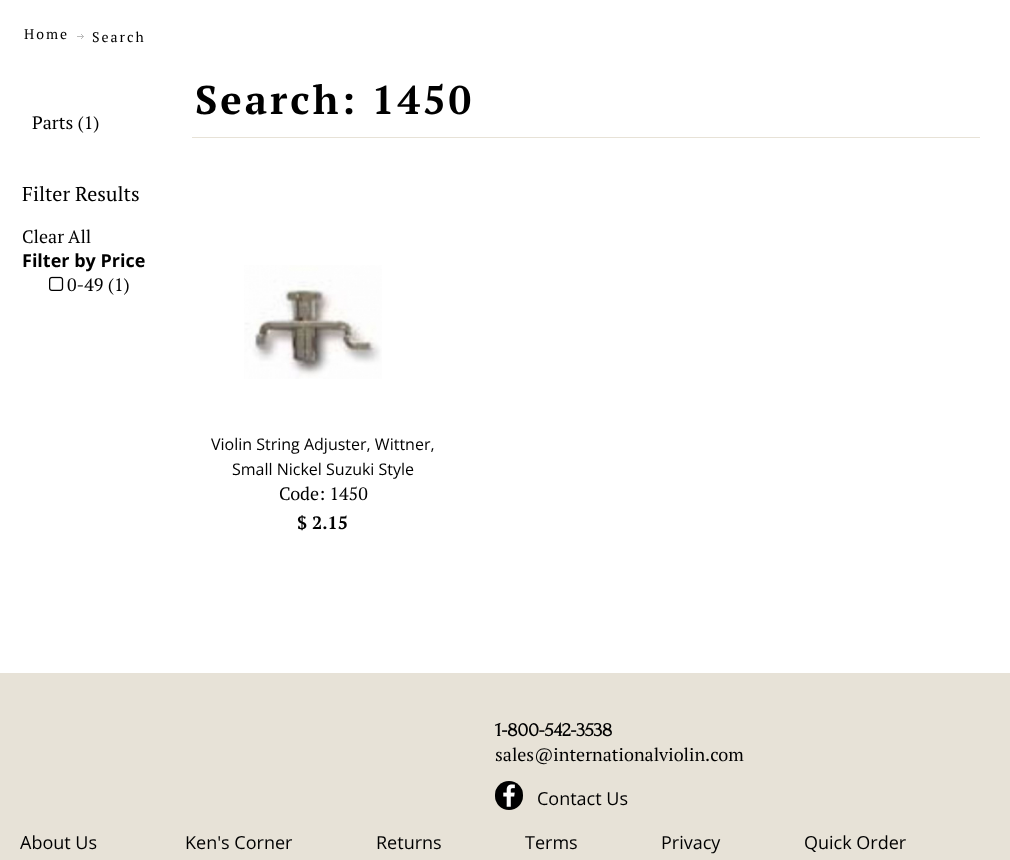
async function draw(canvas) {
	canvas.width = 1010;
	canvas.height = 860;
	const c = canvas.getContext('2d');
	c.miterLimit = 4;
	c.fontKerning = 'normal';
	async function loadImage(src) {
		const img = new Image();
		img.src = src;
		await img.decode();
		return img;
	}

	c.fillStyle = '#fff';
	c.fillRect(0, 0, 1010, 860);
	c.letterSpacing = '2px';
	c.font = '14px PT Serif';
	c.fillStyle = '#000';
	c.fillText('Home', 24, 39);
	c.drawImage(await loadImage('img1.png'), 77, 34, 7, 5);
	c.fillText('Search', 92, 42);
	c.letterSpacing = '0px';
	c.font = '18px PT Serif';
	c.fillText('Parts (1)', 32, 129);
	c.font = '20px PT Serif';
	c.fillText('Filter Results', 22, 201);
	c.font = '18px PT Serif';
	c.fillText('Clear All', 22, 243);
	c.font = 'bold 18px Open Sans';
	c.fillText('Filter by Price', 22, 267);
	c.drawImage(await loadImage('img2.png'), 49, 276, 15, 15);
	c.font = '18px PT Serif';
	c.fillText('0-49 (1)', 67, 291);
	c.letterSpacing = '3px';
	c.font = 'bold 40px PT Serif';
	c.fillText('Search: 1450', 195, 114);
	c.fillStyle = '#e7e2d7';
	c.fillRect(192, 137, 788, 1);
	c.drawImage(await loadImage('img3.png'), 244, 265, 138, 114);
	c.letterSpacing = '0px';
	c.font = '16px Open Sans';
	c.fillStyle = '#000';
	c.fillText('Violin String Adjuster, Wittner,', 211, 450);
	c.fillText('Small Nickel Suzuki Style', 232, 475);
	c.font = '18px PT Serif';
	c.fillText('Code: 1450', 279, 500);
	c.font = 'bold 18px PT Serif';
	c.fillText('$ 2.15', 297, 529);
	c.fillStyle = '#e7e2d7';
	c.fillRect(0, 673, 1010, 187);
	c.font = 'bold 20px Forum';
	c.fillStyle = '#000';
	c.fillText('1-800-542-3538', 495, 736);
	c.font = '18px PT Serif';
	c.fillText('sales@internationalviolin.com', 495, 761);
	c.beginPath();
	c.roundRect(495, 781, 28, 29, 14);
	c.fill();
	c.drawImage(await loadImage('img4.png'), 503, 784, 12, 23);
	c.font = '18px Open Sans';
	for (const [text, x, y] of [
		['Contact Us', 537, 805],
		['About Us', 20, 849],
		['Ken\'s Corner', 185, 849],
		['Returns', 376, 849],
		['Terms', 525, 849],
		['Privacy', 661, 849],
		['Quick Order', 804, 849],
	]) {
		c.fillText(text, x, y);
	}
}

draw(document.querySelector('canvas'));
